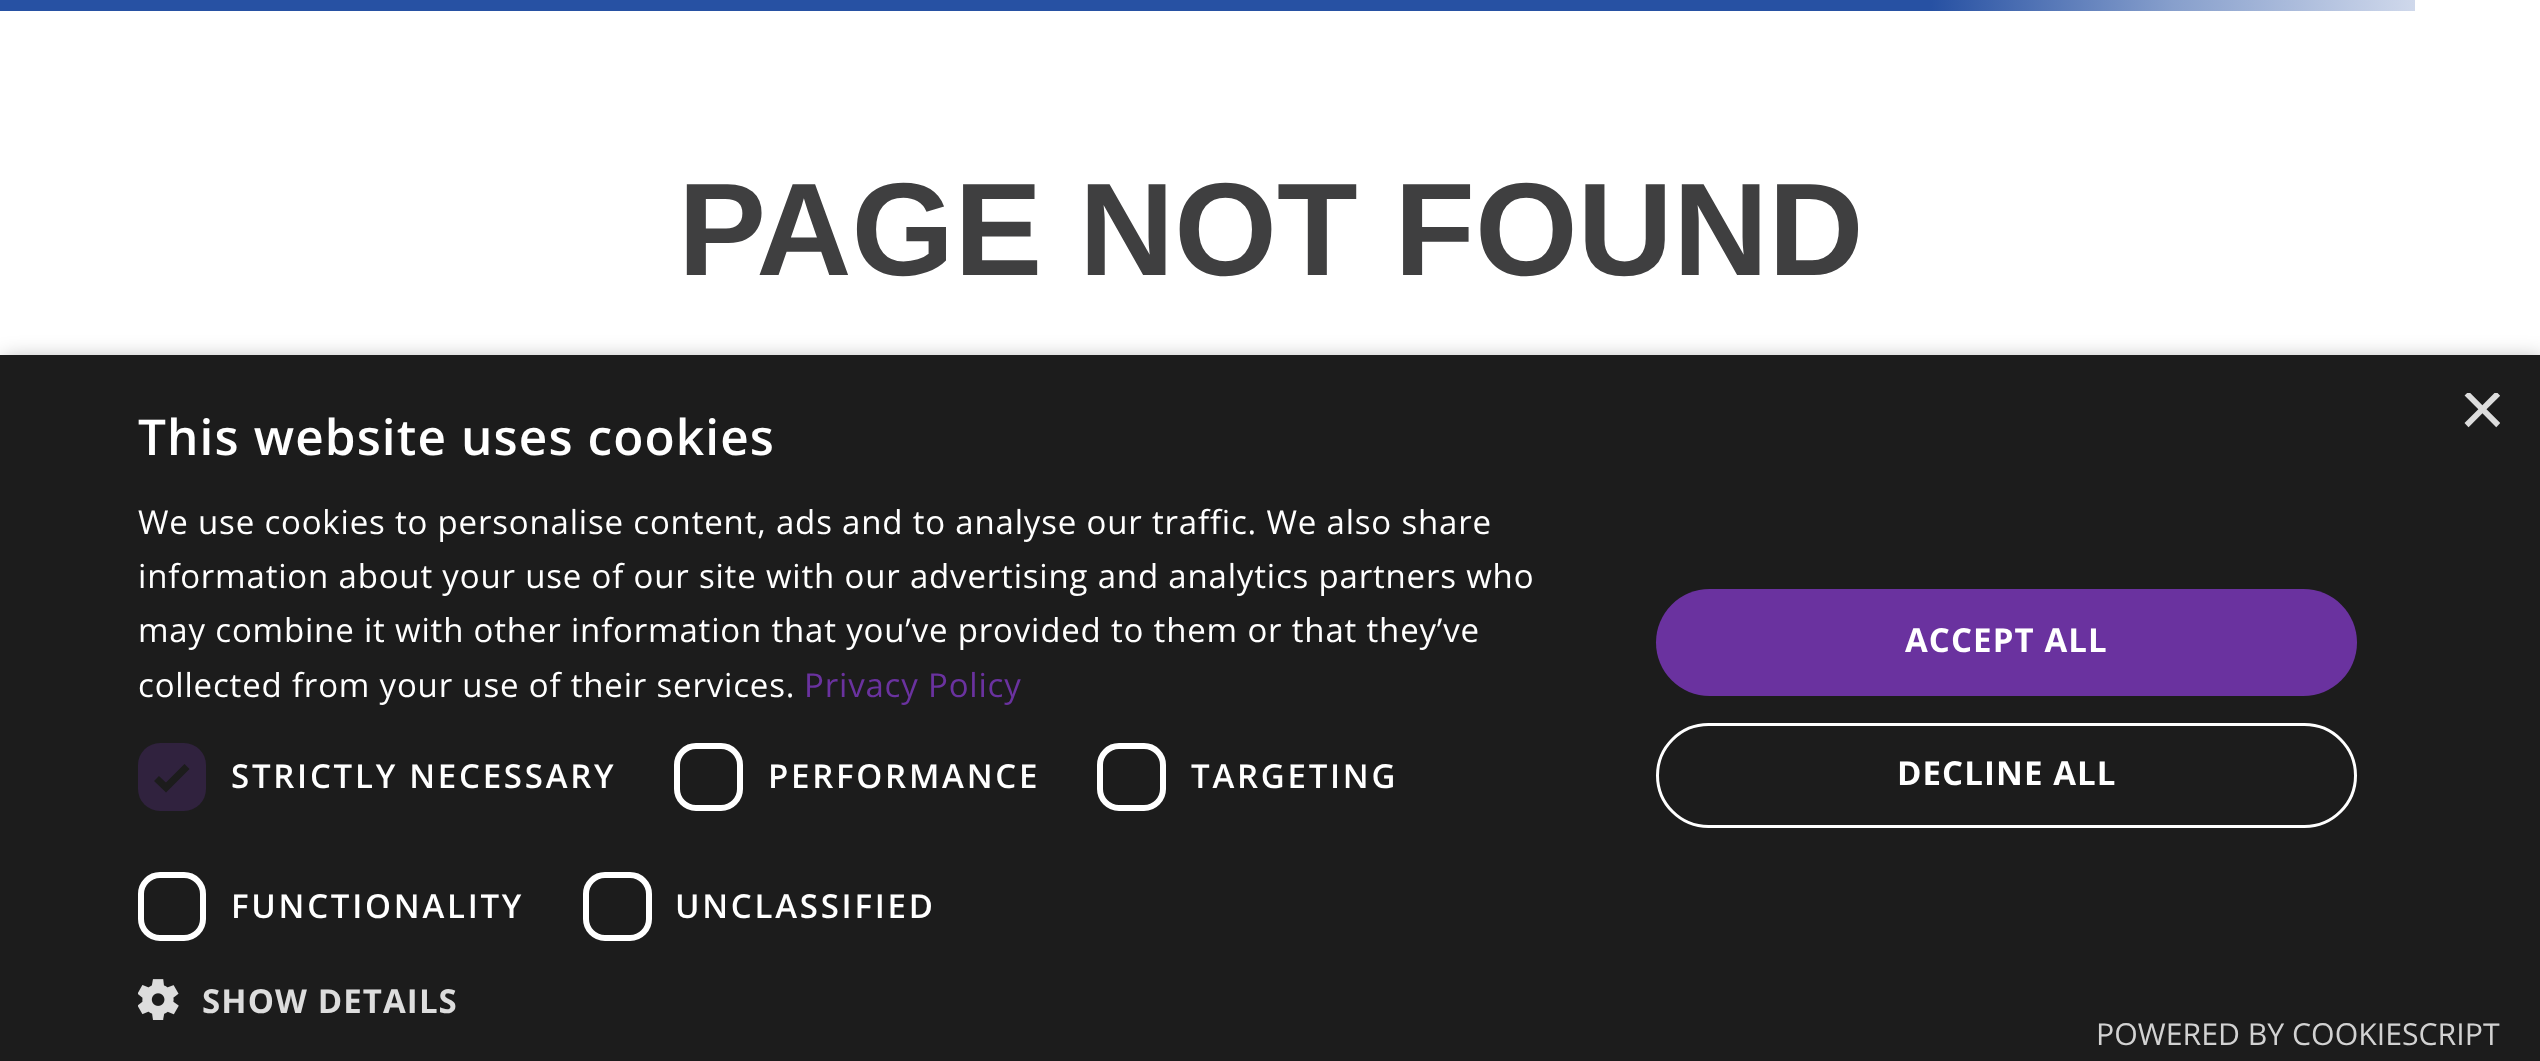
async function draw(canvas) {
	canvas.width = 2540;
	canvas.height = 1061;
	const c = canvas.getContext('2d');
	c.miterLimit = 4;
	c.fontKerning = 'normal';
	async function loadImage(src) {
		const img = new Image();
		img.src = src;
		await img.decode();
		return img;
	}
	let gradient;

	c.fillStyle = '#fff';
	c.fillRect(0, 0, 2540, 1061);
	gradient = c.createLinearGradient(0, 5.5, 2414, 5.5);
	gradient.addColorStop(0.8, '#2751a3');
	gradient.addColorStop(0.9, '#879fcc');
	gradient.addColorStop(1, '#cfd8eb');
	c.fillStyle = gradient;
	c.fillRect(0, 0, 2415, 11);
	c.font = 'bold 132px Liberation Sans';
	c.fillStyle = '#3f3f40';
	c.fillText('PAGE NOT FOUND', 678, 275);
	c.fillStyle = '#00000059';
	c.filter = 'blur(11px)';
	c.beginPath();
	c.rect(3, 360, 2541, 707);
	c.fill();
	c.filter = 'none';
	c.fillStyle = '#1c1c1c';
	c.fillRect(0, 355, 2540, 706);
	c.save();
	c.beginPath();
	c.rect(2459, 393, 41, 42);
	c.clip();
	c.font = '80px Liberation Sans';
	c.fillStyle = '#ddd';
	c.fillText('×', 2459, 436);
	c.restore();
	c.letterSpacing = '1.1px';
	c.font = '600 49.5px Open Sans';
	c.fillStyle = '#fff';
	c.fillText('This website uses cookies', 138, 455);
	c.letterSpacing = '0.82px';
	c.font = '33px Open Sans';
	for (const [text, x, y] of [
		['We use cookies to personalise content, ads and to analyse our traffic. We also share', 138, 534],
		['information about your use of our site with our advertising and analytics partners who', 138, 588],
		['may combine it with other information that you’ve provided to them or that they’ve', 138, 642],
		['collected from your use of their services.', 138, 697],
	]) {
		c.fillText(text, x, y);
	}
	c.fillStyle = '#6a329f';
	c.fillText('Privacy Policy', 804, 697);
	c.fillStyle = '#30223e';
	c.beginPath();
	c.roundRect(138, 743, 68, 68, 22);
	c.fill();
	c.beginPath();
	c.moveTo(156.5, 778.5);
	c.lineTo(166, 787.5);
	c.lineTo(187, 766.5);
	c.strokeStyle = '#1c1c1c';
	c.lineWidth = 7.2;
	c.stroke();
	c.letterSpacing = '2.75px';
	c.font = '600 33px Open Sans';
	c.fillStyle = '#fff';
	c.fillText('STRICTLY NECESSARY', 231, 788);
	c.beginPath();
	c.roundRect(677, 746, 63, 62, 19);
	c.strokeStyle = '#fff';
	c.lineWidth = 6;
	c.stroke();
	c.fillText('PERFORMANCE', 768, 788);
	c.beginPath();
	c.roundRect(1100, 746, 63, 62, 19);
	c.stroke();
	c.fillText('TARGETING', 1191, 788);
	c.beginPath();
	c.roundRect(141, 875, 62, 63, 19);
	c.stroke();
	c.fillText('FUNCTIONALITY', 231, 918);
	c.beginPath();
	c.roundRect(586, 875, 63, 63, 19);
	c.stroke();
	c.fillText('UNCLASSIFIED', 675, 918);
	c.drawImage(await loadImage('img1.png'), 138, 979, 41, 41);
	c.letterSpacing = '1.1px';
	c.font = 'bold 33px Open Sans';
	c.fillStyle = '#ddd';
	c.fillText('SHOW DETAILS', 202, 1013);
	c.fillStyle = '#6a329f';
	c.beginPath();
	c.roundRect(1656, 589, 701, 107, 53.5);
	c.fill();
	c.fillStyle = '#fff';
	c.fillText('ACCEPT ALL', 1905, 652);
	c.beginPath();
	c.roundRect(1657.5, 724.5, 698, 102, 51);
	c.lineWidth = 3;
	c.stroke();
	c.fillText('DECLINE ALL', 1897, 785);
	c.letterSpacing = '0px';
	c.font = '30.25px Open Sans';
	c.fillStyle = '#d2d2d2';
	c.fillText('POWERED BY COOKIESCRIPT', 2096, 1045);
}

draw(document.querySelector('canvas'));
